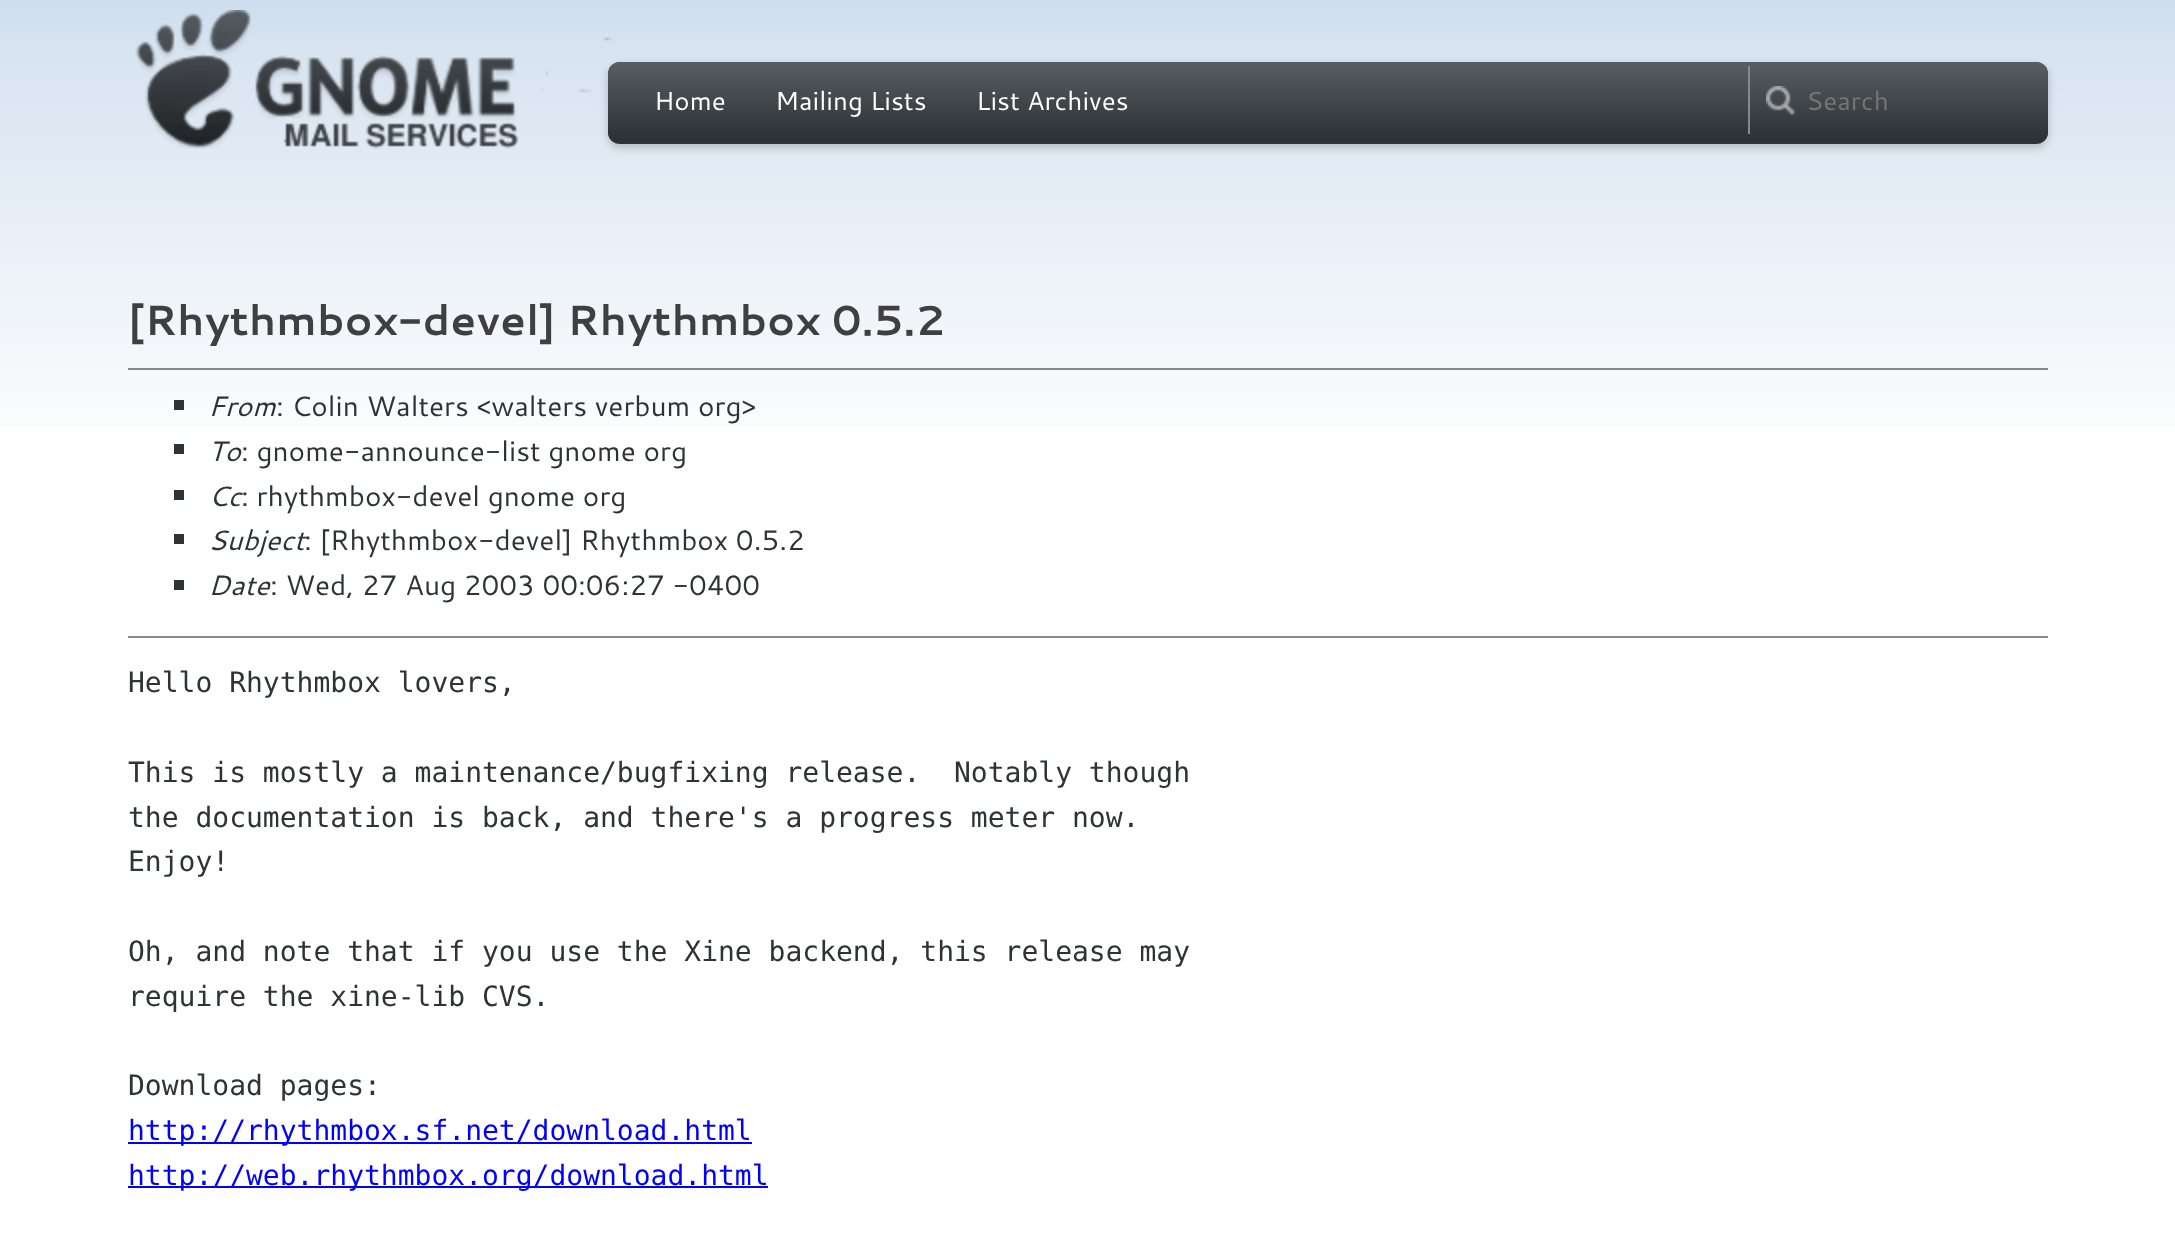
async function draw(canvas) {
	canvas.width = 2175;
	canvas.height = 1241;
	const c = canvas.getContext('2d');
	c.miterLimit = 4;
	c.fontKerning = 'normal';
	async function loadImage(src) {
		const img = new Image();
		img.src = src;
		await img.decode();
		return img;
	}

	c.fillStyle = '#fff';
	c.fillRect(0, 0, 2175, 1241);
	c.drawImage(await loadImage('img1.png'), 0, 0, 2175, 427);
	c.drawImage(await loadImage('img2.png'), 135, 10, 478, 139);
	c.fillStyle = '#00000033';
	c.filter = 'blur(4px)';
	c.beginPath();
	c.roundRect(608, 66, 1440, 82, 12);
	c.fill();
	c.filter = 'none';
	c.fillStyle = '#2e3436';
	c.beginPath();
	c.roundRect(608, 62, 1440, 82, 12);
	c.fill();
	c.drawImage(await loadImage('img3.png'), 608, 62, 1440, 80);
	c.font = '26px Cantarell';
	c.fillStyle = '#fff';
	for (const [text, x, y] of [
		['Home', 654, 110],
		['Mailing Lists', 775, 110],
		['List Archives', 976, 110],
	]) {
		c.fillText(text, x, y);
	}
	c.drawImage(await loadImage('img4.png'), 1766, 86, 30, 30);
	c.fillStyle = '#888';
	c.fillRect(1748, 66, 2, 68);
	c.fillStyle = '#757575';
	c.fillText('Search', 1806, 110);
	c.font = 'bold 42px Cantarell';
	c.fillStyle = '#3f3f3f';
	c.fillText('[Rhythmbox-devel] Rhythmbox 0.5.2', 128, 335);
	c.fillStyle = '#888';
	c.fillRect(128, 368, 1920, 2);
	c.fillStyle = '#2e3436';
	c.fillRect(174, 400, 10, 10);
	c.font = 'italic 28px Cantarell';
	c.fillText('From', 208, 416);
	c.font = '28px Cantarell';
	c.fillText(': Colin Walters <walters verbum org>', 276, 416);
	c.fillRect(174, 444, 10, 10);
	c.font = 'italic 28px Cantarell';
	c.fillText('To', 208, 461);
	c.font = '28px Cantarell';
	c.fillText(': gnome-announce-list gnome org', 241, 461);
	c.fillRect(174, 490, 10, 10);
	c.font = 'italic 28px Cantarell';
	c.fillText('Cc', 208, 506);
	c.font = '28px Cantarell';
	c.fillText(': rhythmbox-devel gnome org', 241, 506);
	c.fillRect(174, 534, 10, 10);
	c.font = 'italic 28px Cantarell';
	c.fillText('Subject', 208, 550);
	c.font = '28px Cantarell';
	c.fillText(': [Rhythmbox-devel] Rhythmbox 0.5.2', 304, 550);
	c.fillRect(174, 580, 10, 10);
	c.font = 'italic 28px Cantarell';
	c.fillText('Date', 208, 595);
	c.font = '28px Cantarell';
	c.fillText(': Wed, 27 Aug 2003 00:06:27 -0400', 270, 595);
	c.fillStyle = '#888';
	c.fillRect(128, 636, 1920, 2);
	c.font = '28px DejaVu Sans Mono';
	c.fillStyle = '#2e3436';
	for (const [text, x, y] of [
		['Hello Rhythmbox lovers,', 128, 692],
		['This is mostly a maintenance/bugfixing release.  Notably though', 128, 782],
		['the documentation is back, and there\'s a progress meter now.', 128, 827],
		['Enjoy!', 128, 871],
		['Oh, and note that if you use the Xine backend, this release may', 128, 961],
		['require the xine-lib CVS.', 128, 1006],
		['Download pages:', 128, 1095],
	]) {
		c.fillText(text, x, y);
	}
	c.fillStyle = '#00f';
	c.fillRect(128, 1142, 624, 2);
	c.fillText('http://rhythmbox.sf.net/download.html', 128, 1140);
	c.fillRect(128, 1186, 640, 2);
	c.fillText('http://web.rhythmbox.org/download.html', 128, 1185);
}

draw(document.querySelector('canvas'));
